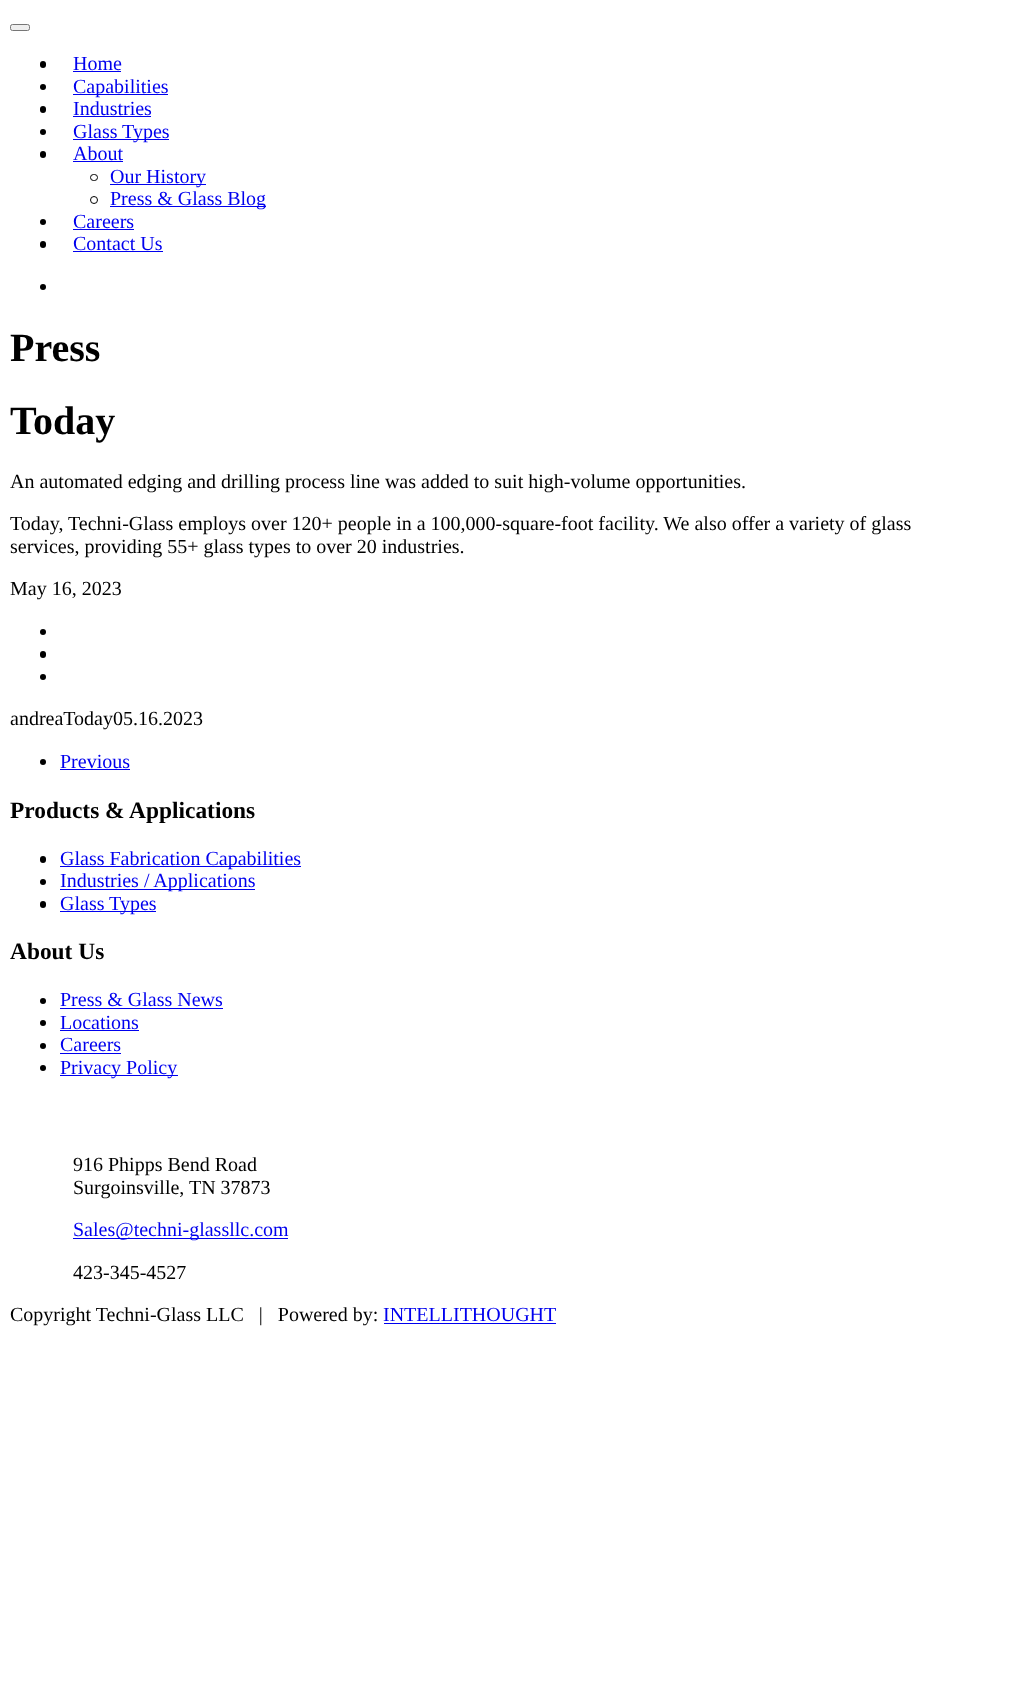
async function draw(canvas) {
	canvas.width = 1019;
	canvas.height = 1690;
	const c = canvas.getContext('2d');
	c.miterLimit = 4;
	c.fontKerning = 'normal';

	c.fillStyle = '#fff';
	c.fillRect(0, 0, 1019, 1690);
	c.fillStyle = '#efefef';
	c.beginPath();
	c.roundRect(10.5, 24.5, 19, 6, 2);
	c.fill();
	c.strokeStyle = '#767676';
	c.stroke();
	c.fillStyle = '#000';
	c.beginPath();
	c.roundRect(40, 61, 6, 7, 3);
	c.fill();
	c.font = '20px Liberation Serif';
	c.fillStyle = '#00e';
	c.fillText('Home', 73, 70);
	c.fillRect(73, 71, 48, 1);
	c.fillStyle = '#000';
	c.beginPath();
	c.arc(43, 87, 3, 0, 2 * Math.PI);
	c.fill();
	c.fillStyle = '#00e';
	c.fillRect(73, 94, 95, 1);
	c.fillText('Capabilities', 73, 93);
	c.fillStyle = '#000';
	c.beginPath();
	c.roundRect(40, 106, 6, 7, 3);
	c.fill();
	c.fillStyle = '#00e';
	c.fillText('Industries', 73, 115);
	c.fillRect(73, 116, 78, 1);
	c.fillStyle = '#000';
	c.beginPath();
	c.arc(43, 132, 3, 0, 2 * Math.PI);
	c.fill();
	c.fillStyle = '#00e';
	c.fillRect(73, 139, 96, 1);
	c.fillText('Glass Types', 73, 138);
	c.fillStyle = '#000';
	c.beginPath();
	c.roundRect(40, 151, 6, 7, 3);
	c.fill();
	c.fillStyle = '#00e';
	c.fillText('About', 73, 160);
	c.fillRect(73, 161, 50, 1);
	c.beginPath();
	c.roundRect(90.5, 174.5, 7, 6, 3);
	c.strokeStyle = '#000';
	c.stroke();
	c.fillRect(110, 184, 96, 1);
	c.fillText('Our History', 110, 183);
	c.beginPath();
	c.arc(94, 200, 3.5, 0, 2 * Math.PI);
	c.stroke();
	c.fillRect(110, 206, 156, 1);
	c.fillText('Press & Glass Blog', 110, 205);
	c.fillStyle = '#000';
	c.beginPath();
	c.arc(43, 222, 3, 0, 2 * Math.PI);
	c.fill();
	c.fillStyle = '#00e';
	c.fillText('Careers', 73, 228);
	c.fillRect(73, 229, 61, 1);
	c.fillStyle = '#000';
	c.beginPath();
	c.roundRect(40, 241, 6, 7, 3);
	c.fill();
	c.fillStyle = '#00e';
	c.fillText('Contact Us', 73, 250);
	c.fillRect(73, 251, 90, 1);
	c.fillStyle = '#000';
	c.beginPath();
	c.arc(43, 287, 3, 0, 2 * Math.PI);
	c.fill();
	c.font = 'bold 40px Liberation Serif';
	c.fillText('Press', 10, 361);
	c.fillText('Today', 10, 434);
	c.font = '20px Liberation Serif';
	for (const [text, x, y] of [
		['An automated edging and drilling process line was added to suit high-volume opportunities.', 10, 488],
		['Today, Techni-Glass employs over 120+ people in a 100,000-square-foot facility. We also offer a variety of glass', 10, 530],
		['services, providing 55+ glass types to over 20 industries.', 10, 553],
		['May 16, 2023', 10, 595],
	]) {
		c.fillText(text, x, y);
	}
	c.beginPath();
	c.arc(43, 632, 3, 0, 2 * Math.PI);
	c.fill();
	c.beginPath();
	c.roundRect(40, 651, 6, 7, 3);
	c.fill();
	c.beginPath();
	c.arc(43, 677, 3, 0, 2 * Math.PI);
	c.fill();
	c.fillText('andreaToday05.16.2023', 10, 725);
	c.beginPath();
	c.arc(43, 762, 3, 0, 2 * Math.PI);
	c.fill();
	c.fillStyle = '#00e';
	c.fillText('Previous', 60, 768);
	c.fillRect(60, 769, 70, 1);
	c.font = 'bold 23.4px Liberation Serif';
	c.fillStyle = '#000';
	c.fillText('Products & Applications', 10, 818);
	c.beginPath();
	c.roundRect(40, 856, 6, 7, 3);
	c.fill();
	c.fillStyle = '#00e';
	c.fillRect(60, 866, 241, 1);
	c.font = '20px Liberation Serif';
	c.fillText('Glass Fabrication Capabilities', 60, 865);
	c.fillStyle = '#000';
	c.beginPath();
	c.arc(43, 882, 3, 0, 2 * Math.PI);
	c.fill();
	c.fillStyle = '#00e';
	c.fillRect(60, 889, 195, 1);
	c.fillText('Industries / Applications', 60, 887);
	c.fillStyle = '#000';
	c.beginPath();
	c.roundRect(40, 901, 6, 7, 3);
	c.fill();
	c.fillStyle = '#00e';
	c.fillRect(60, 911, 96, 1);
	c.fillText('Glass Types', 60, 910);
	c.font = 'bold 23.4px Liberation Serif';
	c.fillStyle = '#000';
	c.fillText('About Us', 10, 959);
	c.beginPath();
	c.arc(43, 1001, 3, 0, 2 * Math.PI);
	c.fill();
	c.font = '20px Liberation Serif';
	c.fillStyle = '#00e';
	c.fillText('Press & Glass News', 60, 1006);
	c.fillRect(60, 1008, 163, 1);
	c.fillStyle = '#000';
	c.beginPath();
	c.arc(43, 1023, 3, 0, 2 * Math.PI);
	c.fill();
	c.fillStyle = '#00e';
	c.fillText('Locations', 60, 1029);
	c.fillRect(60, 1030, 79, 1);
	c.fillStyle = '#000';
	c.beginPath();
	c.arc(43, 1046, 3, 0, 2 * Math.PI);
	c.fill();
	c.fillStyle = '#00e';
	c.fillText('Careers', 60, 1051);
	c.fillRect(60, 1053, 61, 1);
	c.fillStyle = '#000';
	c.beginPath();
	c.arc(43, 1068, 3, 0, 2 * Math.PI);
	c.fill();
	c.fillStyle = '#00e';
	c.fillRect(60, 1075, 118, 1);
	c.fillText('Privacy Policy', 60, 1074);
	c.fillStyle = '#000';
	c.fillText('916 Phipps Bend Road', 73, 1171);
	c.fillText('Surgoinsville, TN 37873', 73, 1194);
	c.fillStyle = '#00e';
	c.fillRect(73, 1238, 215, 1);
	c.fillText('Sales@techni-glassllc.com', 73, 1236);
	c.fillStyle = '#000';
	c.fillText('423-345-4527', 73, 1279);
	c.fillText('Copyright Techni-Glass LLC   |   Powered by:', 10, 1321);
	c.fillStyle = '#00e';
	c.fillText('INTELLITHOUGHT', 383, 1321);
	c.fillRect(384, 1323, 172, 1);
}

draw(document.querySelector('canvas'));
